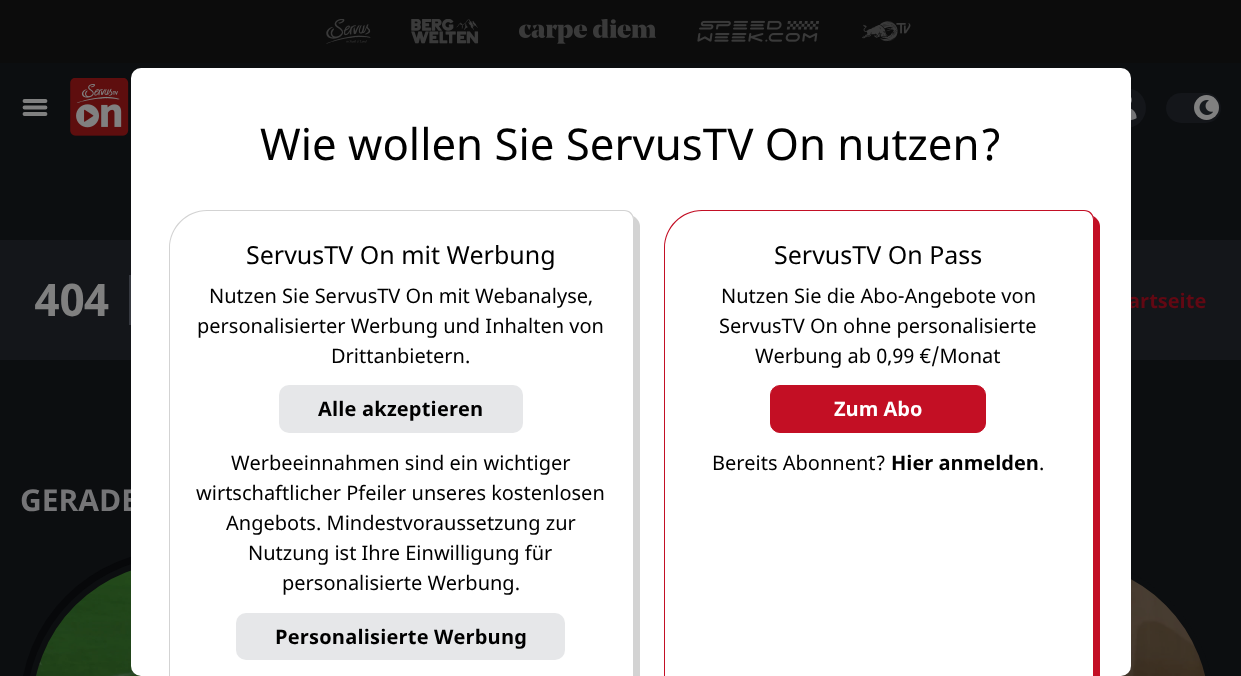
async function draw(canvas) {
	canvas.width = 1241;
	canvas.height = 676;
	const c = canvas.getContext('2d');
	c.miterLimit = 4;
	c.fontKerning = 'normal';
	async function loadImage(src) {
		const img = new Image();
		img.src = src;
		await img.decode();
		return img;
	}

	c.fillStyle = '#0c0e10';
	c.fillRect(0, 0, 1241, 676);
	c.fillStyle = '#14161a';
	c.fillRect(0, 240, 1241, 120);
	c.font = 'bold 20px Noto Sans';
	c.fillStyle = '#620813';
	c.fillText('artseite', 1128, 308);
	c.fillStyle = '#14161a';
	c.beginPath();
	c.arc(1126, 108, 20, 0, 2 * Math.PI);
	c.fill();
	c.font = 'bold 30px Noto Sans';
	c.fillStyle = '#757577';
	c.fillText('GERADE', 20, 511);
	c.fillStyle = '#07080a';
	c.beginPath();
	c.roundRect(20, 550, 375, 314, 187.5);
	c.fill();
	c.drawImage(await loadImage('img9.png'), 30, 566, 111, 110);
	c.beginPath();
	c.roundRect(29, 559, 357, 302, 178.5);
	c.strokeStyle = '#0c0e10';
	c.lineWidth = 6;
	c.stroke();
	c.drawImage(await loadImage('img10.png'), 1121, 577, 90, 99);
	c.beginPath();
	c.roundRect(856, 559, 356, 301, 178);
	c.stroke();
	c.fillStyle = '#fff';
	c.beginPath();
	c.roundRect(131, 68, 1000, 608, 10);
	c.fill();
	c.font = '43.75px Noto Sans';
	c.fillStyle = '#000';
	c.fillText('Wie wollen Sie ServusTV On nutzen?', 260, 160);
	c.fillStyle = '#d3d3d3';
	c.beginPath();
	c.moveTo(634, 676);
	c.lineTo(640, 676);
	c.lineTo(640, 226);
	c.bezierCurveTo(640, 222, 637, 218, 633, 216);
	c.lineTo(634, 220);
	c.closePath();
	c.fill();
	c.beginPath();
	c.moveTo(207, 210);
	c.bezierCurveTo(186, 210, 169, 227, 169, 248);
	c.lineTo(169, 676);
	c.lineTo(170, 676);
	c.lineTo(170, 248);
	c.bezierCurveTo(170, 228, 187, 211, 207, 211);
	c.lineTo(624, 211);
	c.bezierCurveTo(629, 211, 633, 215, 633, 220);
	c.lineTo(633, 676);
	c.lineTo(634, 676);
	c.lineTo(634, 220);
	c.bezierCurveTo(634, 214, 630, 210, 624, 210);
	c.closePath();
	c.fill();
	c.font = '25px Noto Sans';
	c.fillStyle = '#000';
	c.fillText('ServusTV On mit Werbung', 246, 264);
	c.font = '20px Noto Sans';
	for (const [text, x, y] of [
		['Nutzen Sie ServusTV On mit Webanalyse,', 209, 303],
		['personalisierter Werbung und Inhalten von', 197, 333],
		['Drittanbietern.', 331, 363],
	]) {
		c.fillText(text, x, y);
	}
	c.fillStyle = '#e6e7e9';
	c.beginPath();
	c.roundRect(279, 385, 244, 48, 10);
	c.fill();
	c.letterSpacing = '0.2px';
	c.font = 'bold 20px Noto Sans';
	c.fillStyle = '#000';
	c.fillText('Alle akzeptieren', 318, 416);
	c.letterSpacing = '0px';
	c.font = '20px Noto Sans';
	for (const [text, x, y] of [
		['Werbeeinnahmen sind ein wichtiger', 231, 470],
		['wirtschaftlicher Pfeiler unseres kostenlosen', 196, 500],
		['Angebots. Mindestvoraussetzung zur', 226, 530],
		['Nutzung ist Ihre Einwilligung für', 248, 560],
		['personalisierte Werbung.', 282, 590],
	]) {
		c.fillText(text, x, y);
	}
	c.fillStyle = '#e6e7e9';
	c.beginPath();
	c.roundRect(236, 613, 329, 47, 10);
	c.fill();
	c.letterSpacing = '0.2px';
	c.font = 'bold 20px Noto Sans';
	c.fillStyle = '#000';
	c.fillText('Personalisierte Werbung', 275, 644);
	c.fillStyle = '#c30f25';
	c.beginPath();
	c.moveTo(1094, 676);
	c.lineTo(1100, 676);
	c.lineTo(1100, 226);
	c.bezierCurveTo(1100, 222, 1097, 218, 1093, 216);
	c.lineTo(1094, 220);
	c.closePath();
	c.fill();
	c.beginPath();
	c.moveTo(702, 210);
	c.bezierCurveTo(681, 210, 664, 227, 664, 248);
	c.lineTo(664, 676);
	c.lineTo(665, 676);
	c.lineTo(665, 248);
	c.bezierCurveTo(665, 228, 682, 211, 702, 211);
	c.lineTo(1084, 211);
	c.bezierCurveTo(1089, 211, 1093, 215, 1093, 220);
	c.lineTo(1093, 676);
	c.lineTo(1094, 676);
	c.lineTo(1094, 220);
	c.bezierCurveTo(1094, 214, 1090, 210, 1084, 210);
	c.closePath();
	c.fill();
	c.letterSpacing = '0px';
	c.font = '25px Noto Sans';
	c.fillStyle = '#000';
	c.fillText('ServusTV On Pass', 774, 264);
	c.font = '20px Noto Sans';
	for (const [text, x, y] of [
		['Nutzen Sie die Abo-Angebote von', 721, 303],
		['ServusTV On ohne personalisierte', 719, 333],
		['Werbung ab 0,99 €/Monat', 755, 363],
	]) {
		c.fillText(text, x, y);
	}
	c.fillStyle = '#c30f24';
	c.beginPath();
	c.roundRect(770.5, 385.5, 215, 47, 9.5);
	c.fill();
	c.strokeStyle = '#c30f24';
	c.lineWidth = 1;
	c.stroke();
	c.font = 'bold 20px Noto Sans';
	c.fillStyle = '#fff';
	c.fillText('Zum Abo', 834, 416);
	c.font = '20px Noto Sans';
	c.fillStyle = '#000';
	c.fillText('Bereits Abonnent?', 712, 470);
	c.font = 'bold 20px Noto Sans';
	c.fillText('Hier anmelden', 891, 470);
	c.font = '20px Noto Sans';
	c.fillText('.', 1039, 470);
	c.font = 'bold 45px Noto Sans';
	c.fillStyle = '#808080';
	c.fillText('404', 35, 316);
	c.fillStyle = '#363940';
	c.fillRect(129, 275, 2, 50);
	c.fillStyle = '#0c0c0c';
	c.fillRect(0, 0, 1241, 63);
	c.drawImage(await loadImage('img1.png'), 326, 19, 45, 25);
	c.drawImage(await loadImage('img2.png'), 411, 19, 68, 25);
	c.drawImage(await loadImage('img3.png'), 519, 19, 137, 25);
	c.drawImage(await loadImage('img4.png'), 697, 20, 122, 22);
	c.drawImage(await loadImage('img5.png'), 862, 21, 49, 21);
	c.beginPath();
	c.moveTo(24.5, 101);
	c.lineTo(45.5, 101);
	c.moveTo(24.5, 107.5);
	c.lineTo(45.5, 107.5);
	c.moveTo(24.5, 114);
	c.lineTo(45.5, 114);
	c.strokeStyle = '#808080';
	c.lineWidth = 3.8;
	c.lineCap = 'round';
	c.lineJoin = 'round';
	c.stroke();
	c.drawImage(await loadImage('img6.png'), 70, 78, 59, 58);
	c.drawImage(await loadImage('img7.png'), 1131, 97, 6, 24);
	c.fillStyle = '#14161a';
	c.beginPath();
	c.roundRect(1166, 93, 55, 30, 15);
	c.fill();
	c.fillStyle = '#808080';
	c.beginPath();
	c.arc(1206.5, 107.5, 12.5, 0, 2 * Math.PI);
	c.fill();
	c.drawImage(await loadImage('img8.png'), 1199, 100, 14, 15);
}

draw(document.querySelector('canvas'));
